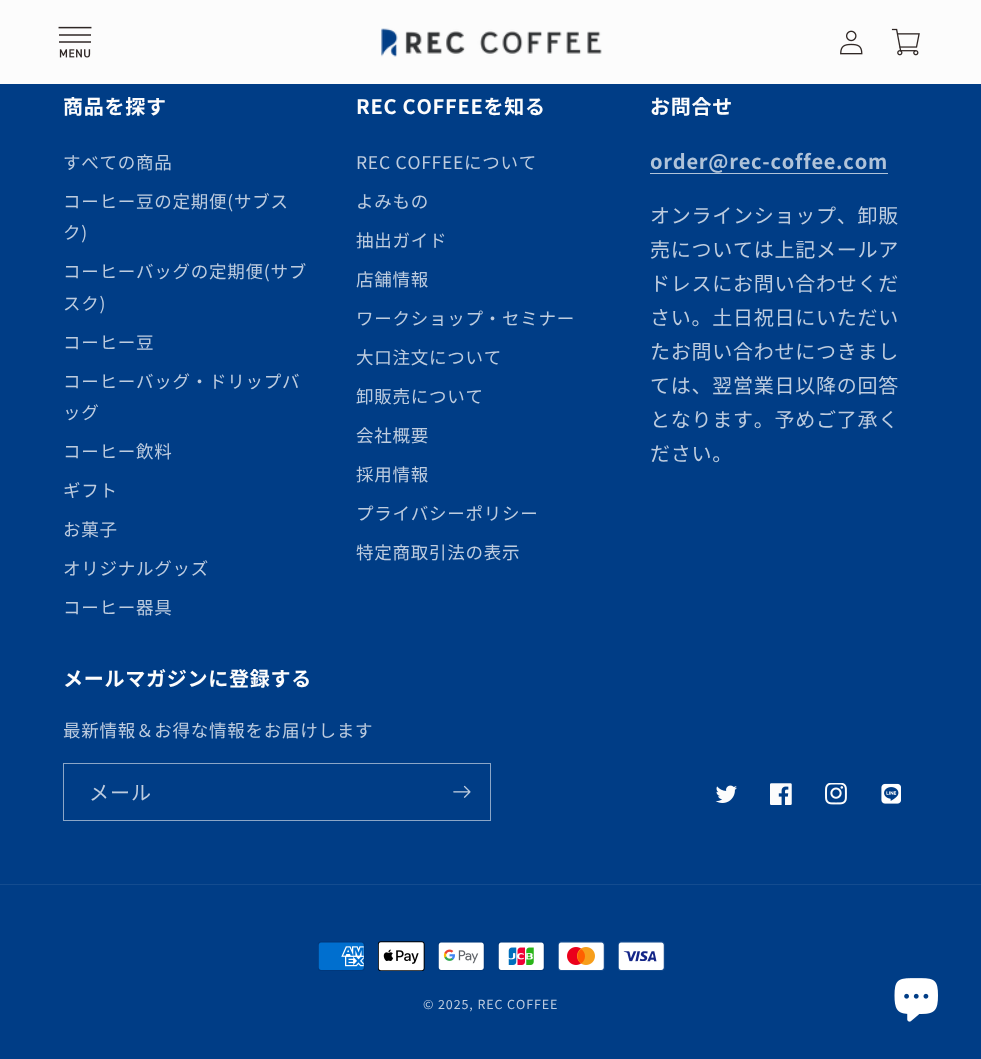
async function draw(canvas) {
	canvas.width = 981;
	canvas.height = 1059;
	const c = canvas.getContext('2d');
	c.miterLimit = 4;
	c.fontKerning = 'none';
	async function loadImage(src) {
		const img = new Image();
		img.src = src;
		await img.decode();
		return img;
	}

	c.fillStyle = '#003d86';
	c.fillRect(0, 0, 981, 1059);
	c.fillStyle = '#fcfcfc';
	c.fillRect(0, 0, 981, 84);
	c.drawImage(await loadImage('img1.png'), 58, 26, 34, 32);
	c.drawImage(await loadImage('img2.png'), 381, 28, 221, 29);
	c.drawImage(await loadImage('img3.png'), 840, 30, 23, 25);
	c.drawImage(await loadImage('img4.png'), 891, 28, 29, 28);
	c.letterSpacing = '0.75px';
	c.font = 'bold 20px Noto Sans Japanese';
	c.fillText('商品を探す', 63, 114);
	c.font = '17.5px Noto Sans Japanese';
	c.fillStyle = '#bdccdf';
	for (const [text, x, y] of [
		['すべての商品', 63, 169],
		['コーヒー豆の定期便(サブス', 63, 208],
		['ク)', 63, 239],
		['コーヒーバッグの定期便(サブ', 63, 278],
		['スク)', 63, 310],
		['コーヒー豆', 63, 349],
		['コーヒーバッグ・ドリップバ', 63, 388],
		['ッグ', 63, 419],
		['コーヒー飲料', 63, 458],
		['ギフト', 63, 497],
		['お菓子', 63, 536],
		['オリジナルグッズ', 63, 575],
		['コーヒー器具', 63, 614],
	]) {
		c.fillText(text, x, y);
	}
	c.font = 'bold 20px Noto Sans Japanese';
	c.fillStyle = '#fcfcfc';
	c.fillText('REC COFFEEを知る', 356, 114);
	c.font = '17.5px Noto Sans Japanese';
	c.fillStyle = '#bdccdf';
	for (const [text, x, y] of [
		['REC COFFEEについて', 356, 169],
		['よみもの', 356, 208],
		['抽出ガイド', 356, 247],
		['店舗情報', 356, 286],
		['ワークショップ・セミナー', 356, 325],
		['大口注文について', 356, 364],
		['卸販売について', 356, 403],
		['会社概要', 356, 442],
		['採用情報', 356, 481],
		['プライバシーポリシー', 356, 520],
		['特定商取引法の表示', 356, 559],
	]) {
		c.fillText(text, x, y);
	}
	c.font = 'bold 20px Noto Sans Japanese';
	c.fillStyle = '#fcfcfc';
	c.fillText('お問合せ', 650, 114);
	c.fillStyle = '#b0c3d9';
	c.fillText('order@rec-coffee.com', 650, 169);
	c.fillRect(650, 173, 238, 1);
	c.font = '20px Noto Sans Japanese';
	c.fillStyle = '#bdccdf';
	for (const [text, x, y] of [
		['オンラインショップ、卸販', 650, 223],
		['売については上記メールア', 650, 257],
		['ドレスにお問い合わせくだ', 650, 291],
		['さい。土日祝日にいただい', 650, 325],
		['たお問い合わせにつきまし', 650, 359],
		['ては、翌営業日以降の回答', 650, 393],
		['となります。予めご了承く', 650, 427],
		['ださい。', 650, 461],
	]) {
		c.fillText(text, x, y);
	}
	c.font = 'bold 20px Noto Sans Japanese';
	c.fillStyle = '#fcfcfc';
	c.fillText('メールマガジンに登録する', 63, 686);
	c.font = '17.5px Noto Sans Japanese';
	c.fillStyle = '#bdccdf';
	c.fillText('最新情報＆お得な情報をお届けします', 63, 737);
	c.strokeStyle = '#8ba6c7';
	c.strokeRect(63.5, 763.5, 427, 57);
	c.letterSpacing = '1px';
	c.font = '20px Noto Sans Japanese';
	c.fillText('メール', 89, 800);
	c.drawImage(await loadImage('img5.png'), 453, 785, 18, 13);
	c.drawImage(await loadImage('img6.png'), 715, 785, 22, 18);
	c.drawImage(await loadImage('img7.png'), 770, 783, 22, 22);
	c.drawImage(await loadImage('img8.png'), 825, 783, 22, 22);
	c.drawImage(await loadImage('img9.png'), 881, 783, 20, 21);
	c.fillStyle = '#144c8f';
	c.fillRect(0, 884, 981, 1);
	c.drawImage(await loadImage('img10.png'), 318, 941, 47, 30);
	c.drawImage(await loadImage('img11.png'), 378, 941, 47, 30);
	c.drawImage(await loadImage('img12.png'), 438, 941, 47, 30);
	c.drawImage(await loadImage('img13.png'), 498, 941, 47, 30);
	c.drawImage(await loadImage('img14.png'), 558, 941, 47, 30);
	c.drawImage(await loadImage('img15.png'), 618, 941, 47, 30);
	c.letterSpacing = '0.9px';
	c.font = '12.5px Noto Sans Japanese';
	c.fillStyle = '#bdccdf';
	c.fillText('© 2025, REC COFFEE', 423, 1009);
	c.drawImage(await loadImage('img16.png'), 894, 978, 44, 44);
}

draw(document.querySelector('canvas'));
